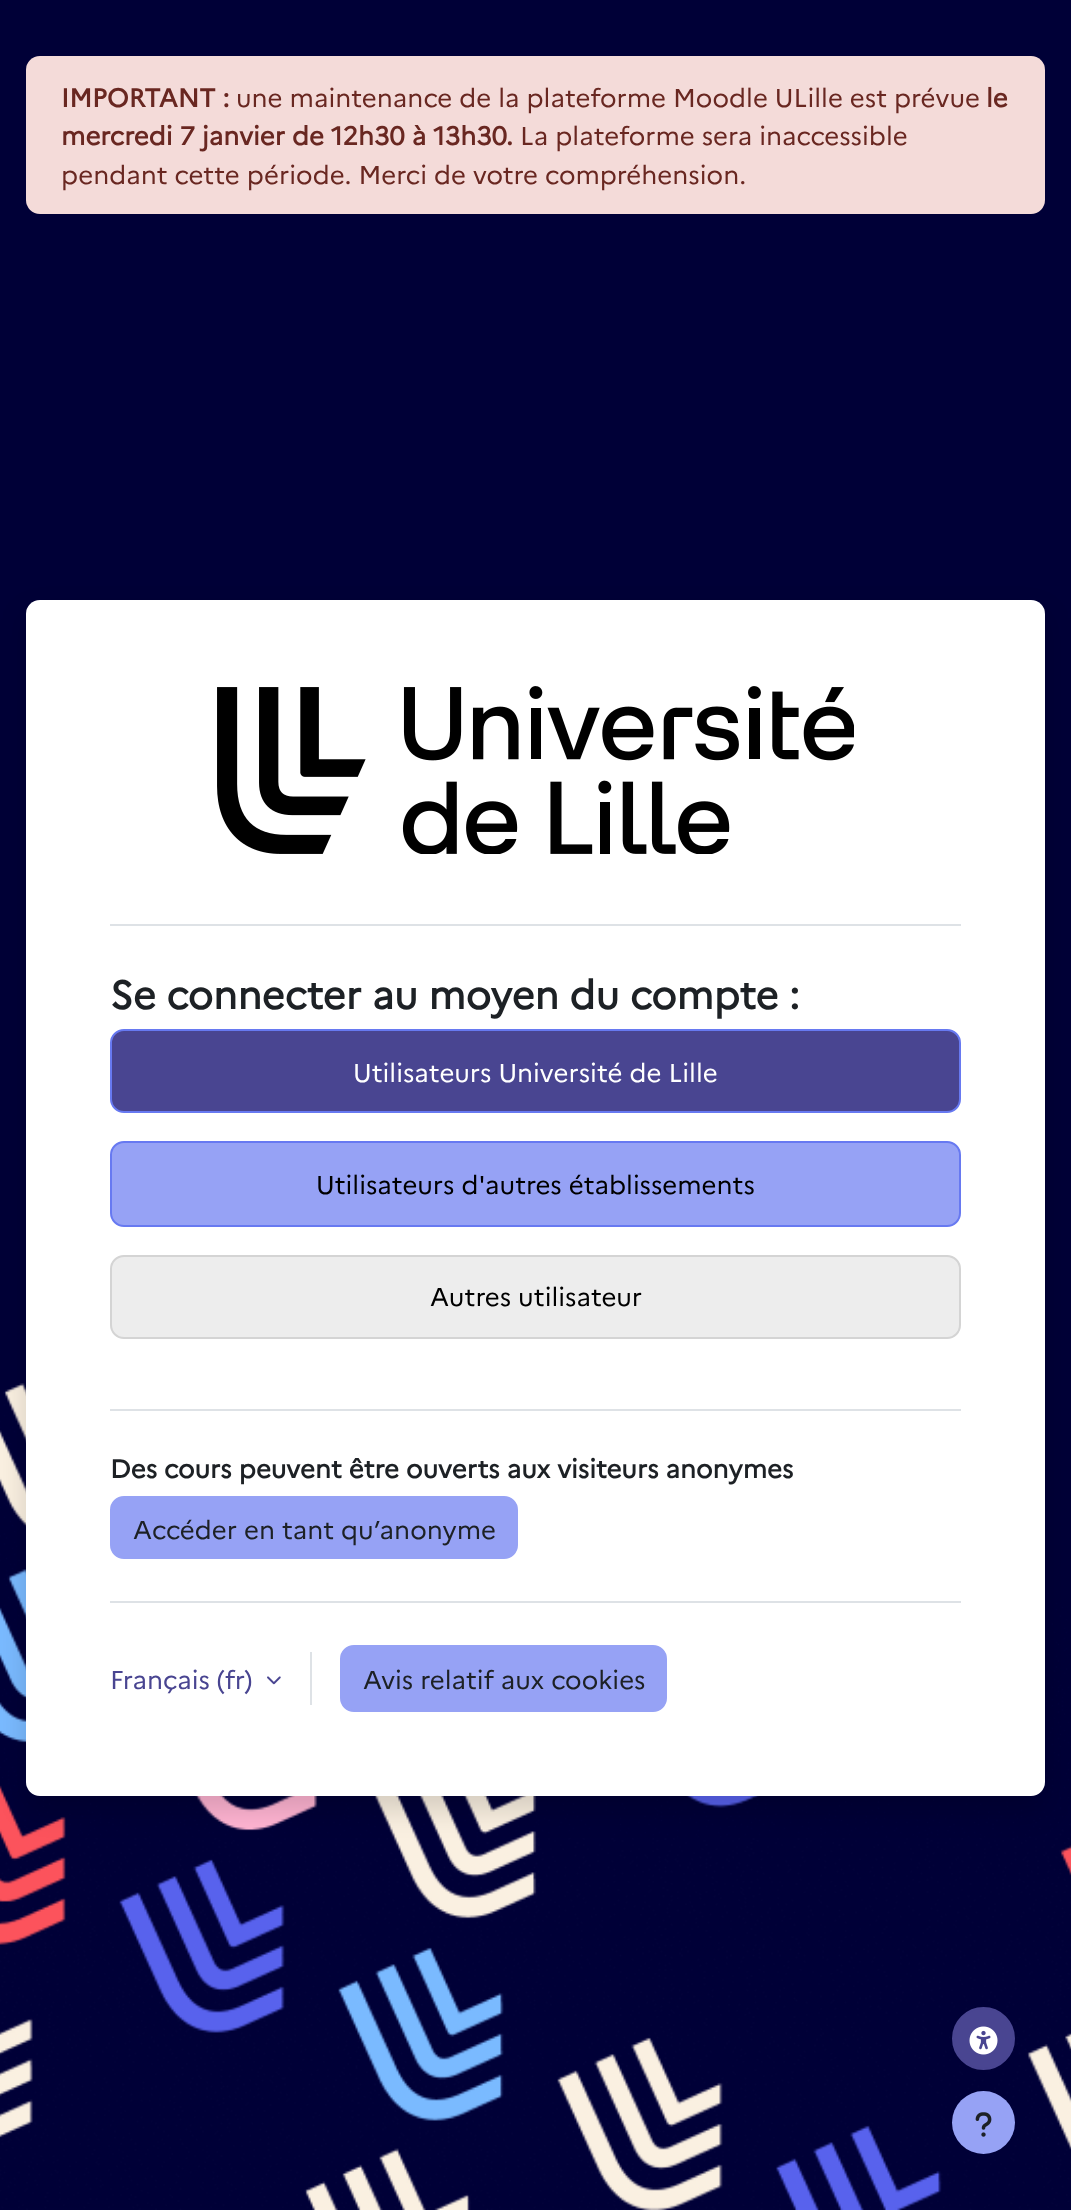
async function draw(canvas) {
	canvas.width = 1071;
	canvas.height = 2210;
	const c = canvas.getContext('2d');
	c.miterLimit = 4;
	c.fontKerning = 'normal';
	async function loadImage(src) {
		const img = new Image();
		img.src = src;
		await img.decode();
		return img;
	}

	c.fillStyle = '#fff';
	c.fillRect(0, 0, 1071, 2210);
	c.drawImage(await loadImage('img1.png'), 0, 0, 1071, 2210);
	c.fillStyle = '#f4dbd9';
	c.beginPath();
	c.roundRect(26, 56, 1019, 158, 14);
	c.fill();
	c.font = 'bold 25.8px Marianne';
	c.fillStyle = '#692721';
	c.fillText('IMPORTANT :', 61, 107);
	c.font = '25.8px Marianne';
	c.fillText('une maintenance de la plateforme Moodle ULille est prévue', 236, 107);
	c.font = 'bold 25.8px Marianne';
	c.fillText('le', 986, 107);
	c.fillText('mercredi 7 janvier de 12h30 à 13h30.', 61, 145);
	c.font = '25.8px Marianne';
	c.fillText('La plateforme sera inaccessible', 520, 145);
	c.fillText('pendant cette période. Merci de votre compréhension.', 61, 184);
	c.fillStyle = '#00000026';
	c.filter = 'blur(14px)';
	c.beginPath();
	c.roundRect(26, 614, 1019, 1196, 14);
	c.fill();
	c.filter = 'none';
	c.fillStyle = '#fff';
	c.beginPath();
	c.roundRect(26, 600, 1019, 1196, 14);
	c.fill();
	c.drawImage(await loadImage('img2.png'), 217, 686, 637, 168);
	c.fillStyle = '#dee2e6';
	c.fillRect(110, 924, 851, 2);
	c.font = 'bold 39.4px Marianne';
	c.fillStyle = '#1d2125';
	c.fillText('Se connecter au moyen du compte :', 110, 1009);
	c.fillStyle = '#494591';
	c.beginPath();
	c.roundRect(111, 1030, 849, 82, 13);
	c.fill();
	c.strokeStyle = '#6779f1';
	c.lineWidth = 2;
	c.stroke();
	c.font = '25.8px Marianne';
	c.fillStyle = '#fff';
	c.fillText('Utilisateurs Université de Lille', 353, 1082);
	c.fillStyle = '#96a2f5';
	c.beginPath();
	c.roundRect(111, 1142, 849, 84, 13);
	c.fill();
	c.stroke();
	c.fillStyle = '#000';
	c.fillText('Utilisateurs d\'autres établissements', 316, 1194);
	c.fillStyle = '#ededed';
	c.beginPath();
	c.roundRect(111, 1256, 849, 82, 13);
	c.fill();
	c.strokeStyle = '#d4d4d4';
	c.stroke();
	c.fillStyle = '#000';
	c.fillText('Autres utilisateur', 430, 1306);
	c.fillStyle = '#dee2e6';
	c.fillRect(110, 1409, 851, 2);
	c.font = 'bold 25.8px Marianne';
	c.fillStyle = '#1d2125';
	c.fillText('Des cours peuvent être ouverts aux visiteurs anonymes', 110, 1478);
	c.fillStyle = '#96a2f5';
	c.beginPath();
	c.roundRect(111, 1497, 406, 61, 13);
	c.fill();
	c.strokeStyle = '#96a2f5';
	c.stroke();
	c.font = '25.8px Marianne';
	c.fillStyle = '#1d2125';
	c.fillText('Accéder en tant qu’anonyme', 133, 1539);
	c.fillStyle = '#dee2e6';
	c.fillRect(110, 1601, 851, 2);
	c.fillStyle = '#494591';
	c.fillText('Français (fr)', 110, 1689);
	c.drawImage(await loadImage('img3.png'), 267, 1676, 14, 9);
	c.fillStyle = '#dee2e6';
	c.fillRect(310, 1652, 2, 53);
	c.fillStyle = '#96a2f5';
	c.beginPath();
	c.roundRect(341, 1646, 325, 65, 13);
	c.fill();
	c.stroke();
	c.fillStyle = '#1d2125';
	c.fillText('Avis relatif aux cookies', 363, 1689);
	c.fillStyle = '#494591';
	c.beginPath();
	c.arc(983.5, 2038.5, 30.5, 0, 2 * Math.PI);
	c.fill();
	c.strokeStyle = '#494591';
	c.stroke();
	c.drawImage(await loadImage('img4.png'), 969, 2026, 29, 29);
	c.fillStyle = '#96a2f5';
	c.beginPath();
	c.arc(983.5, 2122.5, 31.5, 0, 2 * Math.PI);
	c.fill();
	c.drawImage(await loadImage('img5.png'), 975, 2112, 17, 25);
}

draw(document.querySelector('canvas'));
